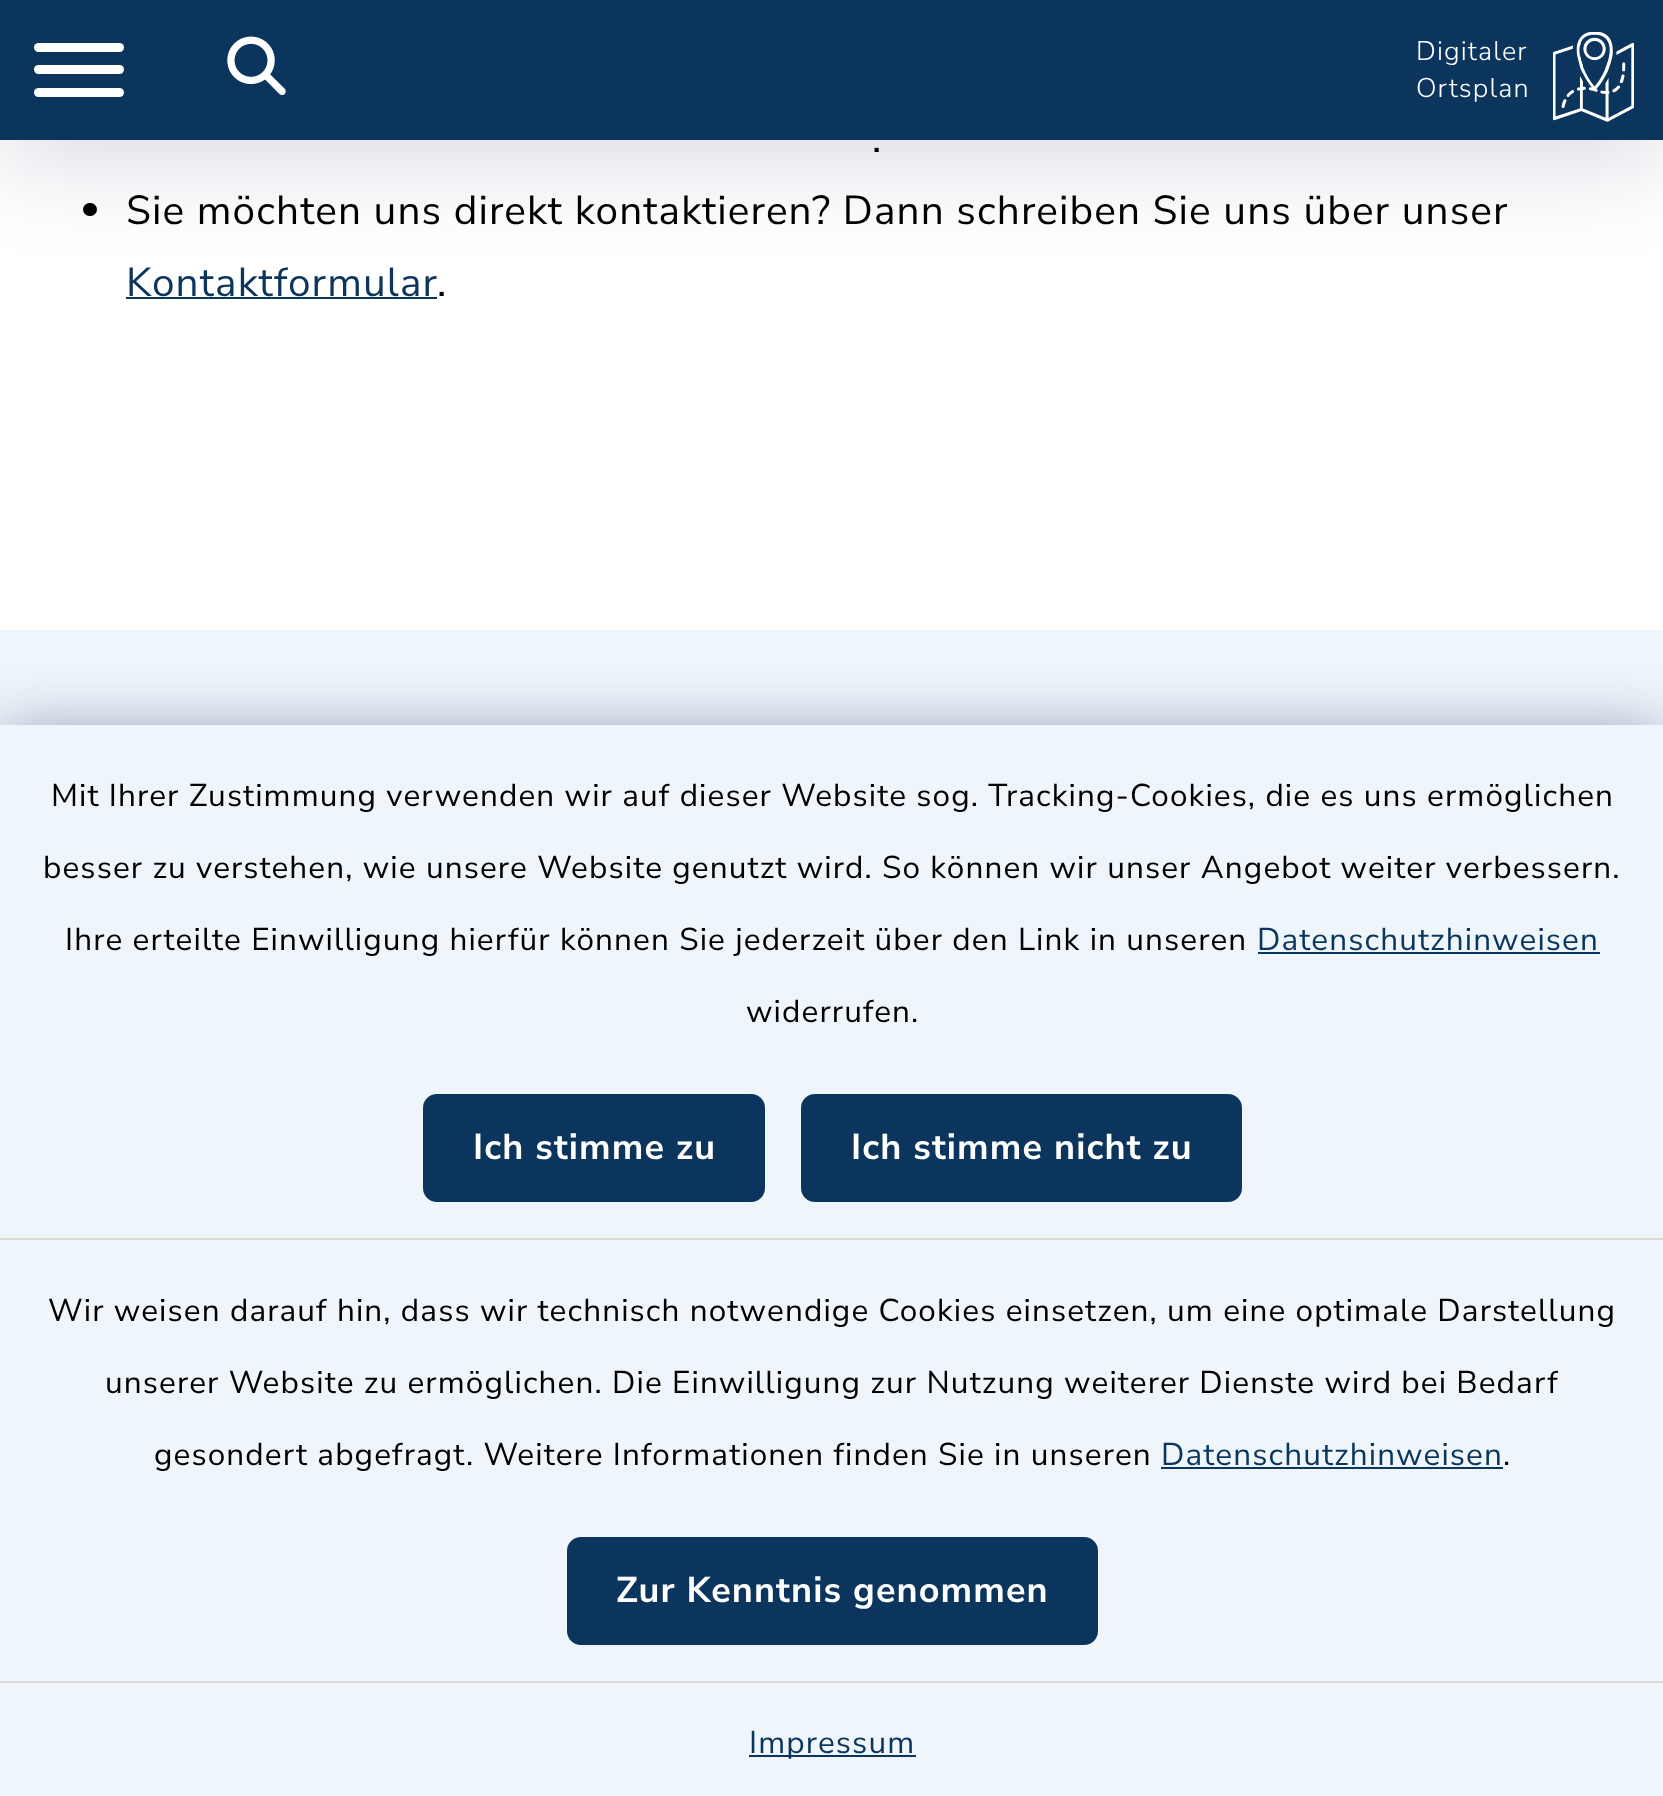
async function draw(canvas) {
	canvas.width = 1663;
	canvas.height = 1796;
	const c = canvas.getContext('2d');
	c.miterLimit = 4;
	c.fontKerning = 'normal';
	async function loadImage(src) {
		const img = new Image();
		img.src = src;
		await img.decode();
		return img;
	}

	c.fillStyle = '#fff';
	c.fillRect(0, 0, 1663, 1796);
	c.fillStyle = '#000';
	c.beginPath();
	c.roundRect(83, 203, 14, 13, 6.5);
	c.fill();
	c.fillStyle = '#0b355c';
	c.fillRect(126, 297, 311, 2);
	c.fillStyle = '#040f4929';
	c.filter = 'blur(49.5px)';
	c.beginPath();
	c.rect(0, 18, 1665, 140);
	c.fill();
	c.filter = 'none';
	c.fillStyle = '#0b355c';
	c.fillRect(0, 0, 1663, 140);
	c.fillStyle = '#fff';
	c.beginPath();
	c.roundRect(34, 65, 90, 9, 4.5);
	c.fill();
	c.beginPath();
	c.roundRect(34, 43, 90, 9, 4.5);
	c.fill();
	c.beginPath();
	c.roundRect(34, 88, 90, 9, 4.5);
	c.fill();
	c.drawImage(await loadImage('img1.png'), 227, 36, 59, 59);
	c.letterSpacing = '1.12px';
	c.font = '300 27px Nunito Sans';
	c.fillText('Digitaler', 1416, 60);
	c.fillText('Ortsplan', 1416, 97);
	c.drawImage(await loadImage('img2.png'), 1553, 32, 81, 90);
	c.font = '40.5px Nunito Sans';
	c.fillStyle = '#000';
	c.fillText('.', 872, 152);
	c.fillText('Sie möchten uns direkt kontaktieren? Dann schreiben Sie uns über unser', 126, 224);
	c.fillStyle = '#0b355c';
	c.fillText('Kontaktformular', 126, 296);
	c.fillStyle = '#000';
	c.fillText('.', 437, 296);
	c.fillStyle = '#eef6fb';
	c.fillRect(0, 630, 1663, 95);
	c.fillStyle = '#040f4970';
	c.filter = 'blur(31.5px)';
	c.beginPath();
	c.rect(0, 734, 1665, 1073);
	c.fill();
	c.filter = 'none';
	c.fillStyle = '#eef6fb';
	c.fillRect(0, 725, 1663, 1071);
	c.fillStyle = '#d9d9d9';
	c.fillRect(0, 1238, 1663, 2);
	c.font = '31.5px Nunito Sans';
	c.fillStyle = '#000';
	for (const [text, x, y] of [
		['Mit Ihrer Zustimmung verwenden wir auf dieser Website sog. Tracking-Cookies, die es uns ermöglichen', 51, 806],
		['besser zu verstehen, wie unsere Website genutzt wird. So können wir unser Angebot weiter verbessern.', 43, 878],
		['Ihre erteilte Einwilligung hierfür können Sie jederzeit über den Link in unseren', 65, 950],
	]) {
		c.fillText(text, x, y);
	}
	c.fillStyle = '#0b355c';
	c.fillText('Datenschutzhinweisen', 1257, 950);
	c.fillRect(1258, 952, 342, 2);
	c.fillStyle = '#000';
	c.fillText('widerrufen.', 746, 1022);
	c.fillStyle = '#0b355c';
	c.beginPath();
	c.roundRect(425.5, 1096.5, 337, 103, 11.5);
	c.fill();
	c.strokeStyle = '#0b355c';
	c.lineWidth = 5;
	c.stroke();
	c.font = 'bold 36px Nunito Sans';
	c.fillStyle = '#fff';
	c.fillText('Ich stimme zu', 473, 1159);
	c.fillStyle = '#0b355c';
	c.beginPath();
	c.roundRect(803.5, 1096.5, 436, 103, 11.5);
	c.fill();
	c.stroke();
	c.fillStyle = '#fff';
	c.fillText('Ich stimme nicht zu', 851, 1159);
	c.fillStyle = '#d9d9d9';
	c.fillRect(0, 1681, 1663, 2);
	c.font = '31.5px Nunito Sans';
	c.fillStyle = '#000';
	for (const [text, x, y] of [
		['Wir weisen darauf hin, dass wir technisch notwendige Cookies einsetzen, um eine optimale Darstellung', 48, 1321],
		['unserer Website zu ermöglichen. Die Einwilligung zur Nutzung weiterer Dienste wird bei Bedarf', 105, 1393],
		['gesondert abgefragt. Weitere Informationen finden Sie in unseren', 154, 1465],
	]) {
		c.fillText(text, x, y);
	}
	c.fillStyle = '#0b355c';
	c.fillText('Datenschutzhinweisen', 1161, 1465);
	c.fillRect(1161, 1467, 342, 2);
	c.fillStyle = '#000';
	c.fillText('.', 1503, 1465);
	c.fillStyle = '#0b355c';
	c.beginPath();
	c.roundRect(569.5, 1539.5, 526, 103, 11.5);
	c.fill();
	c.stroke();
	c.font = 'bold 36px Nunito Sans';
	c.fillStyle = '#fff';
	c.fillText('Zur Kenntnis genommen', 616, 1602);
	c.fillStyle = '#f1f8fc';
	c.fillRect(0, 1683, 1663, 2);
	c.fillStyle = '#0b355c';
	c.fillRect(749, 1755, 167, 2);
	c.font = '31.5px Nunito Sans';
	c.fillText('Impressum', 749, 1753);
}

draw(document.querySelector('canvas'));
